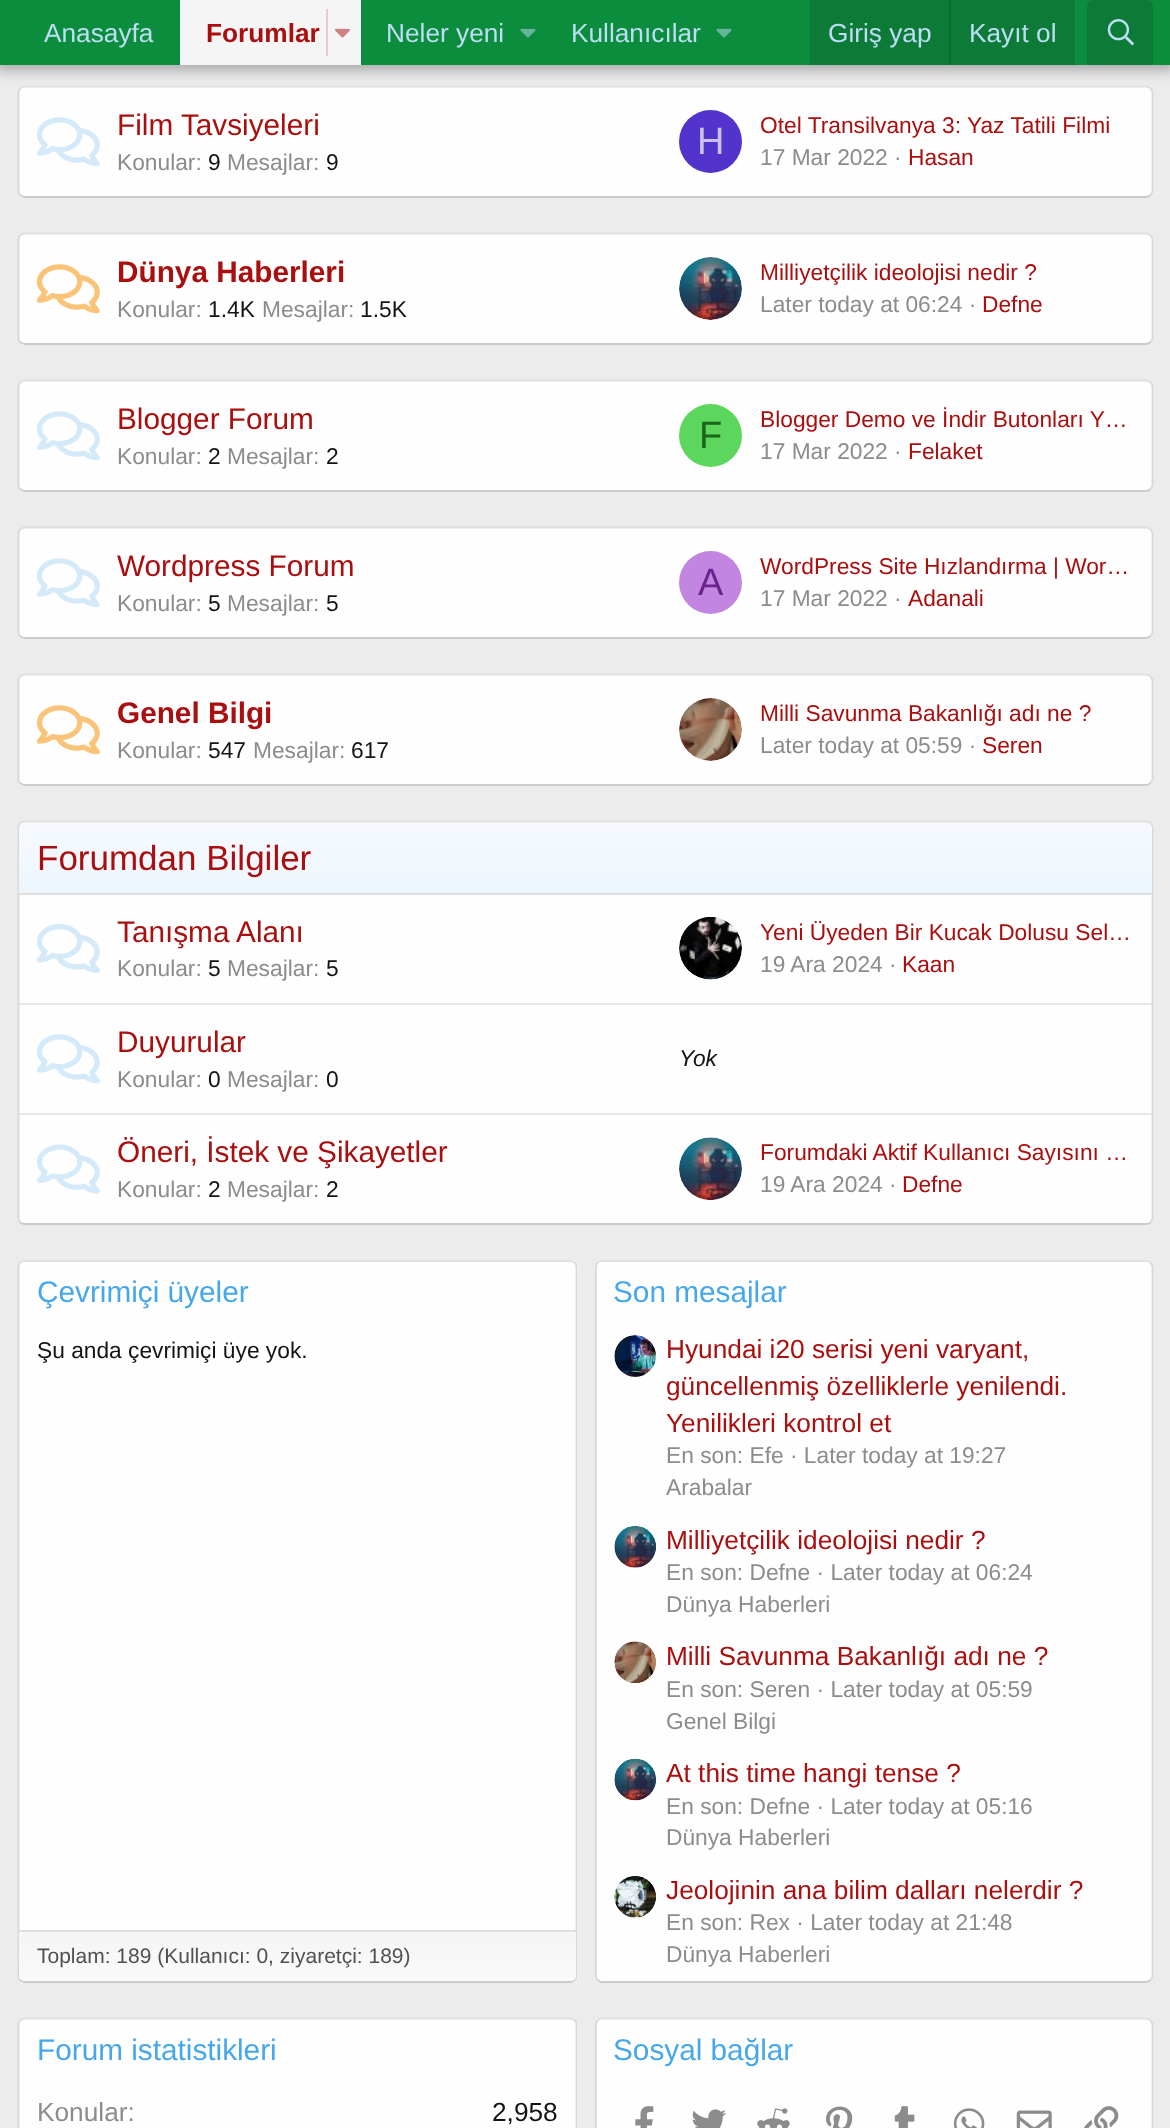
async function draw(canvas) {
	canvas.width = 1170;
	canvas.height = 2128;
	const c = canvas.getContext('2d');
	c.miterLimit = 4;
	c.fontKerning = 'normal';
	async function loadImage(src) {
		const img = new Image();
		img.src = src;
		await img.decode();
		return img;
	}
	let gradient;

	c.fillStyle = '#ececec';
	c.fillRect(0, 0, 1170, 2128);
	c.fillStyle = '#fefefe';
	c.beginPath();
	c.roundRect(18, 86, 1135, 112, 7);
	c.fill();
	c.beginPath();
	c.moveTo(20, 88.5);
	c.bezierCurveTo(21.5, 87.5, 23, 86.5, 24.5, 86.5);
	c.lineTo(1146, 86.5);
	c.bezierCurveTo(1148, 86.5, 1149.5, 87.5, 1150.5, 88.5);
	c.strokeStyle = '#dfdfdf';
	c.lineWidth = 1.8;
	c.stroke();
	c.beginPath();
	c.moveTo(1150.5, 88.5);
	c.bezierCurveTo(1151.5, 89.5, 1152.5, 91, 1152.5, 93);
	c.lineTo(1152.5, 191);
	c.bezierCurveTo(1152.5, 192.5, 1151.5, 194, 1150.5, 195);
	c.strokeStyle = '#d8d8d8';
	c.stroke();
	c.beginPath();
	c.moveTo(1150.5, 195);
	c.bezierCurveTo(1149.5, 196, 1148, 197, 1146, 197);
	c.lineTo(24.5, 197);
	c.bezierCurveTo(23, 197, 21.5, 196, 20, 195);
	c.strokeStyle = '#cbcbcb';
	c.stroke();
	c.beginPath();
	c.moveTo(20, 195);
	c.bezierCurveTo(19, 194, 18.5, 192.5, 18.5, 191);
	c.lineTo(18.5, 93);
	c.bezierCurveTo(18.5, 91, 19, 89.5, 20, 88.5);
	c.strokeStyle = '#d8d8d8';
	c.stroke();
	c.fillStyle = '#0000004d';
	c.filter = 'blur(7px)';
	c.beginPath();
	c.rect(-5, -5, 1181, 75);
	c.fill();
	c.filter = 'none';
	c.fillStyle = '#0c8d3d';
	c.fillRect(0, 0, 1170, 65);
	c.font = '26.25px Liberation Sans';
	c.fillStyle = '#bcdef5';
	c.fillText('Anasayfa', 44, 42);
	c.fillStyle = '#f5f5f5';
	c.fillRect(180, 0, 181, 65);
	c.font = 'bold 26.25px Liberation Sans';
	c.fillStyle = '#aa0f0f';
	c.fillText('Forumlar', 206, 42);
	c.fillStyle = '#e8cdcd';
	c.fillRect(326, 9, 2, 47);
	c.drawImage(await loadImage('img1.png'), 334, 28, 16, 10);
	c.font = '26.25px Liberation Sans';
	c.fillStyle = '#bcdef5';
	c.fillText('Neler yeni', 386, 42);
	c.drawImage(await loadImage('img2.png'), 520, 28, 16, 10);
	c.fillText('Kullanıcılar', 571, 42);
	c.drawImage(await loadImage('img2.png'), 716, 28, 16, 10);
	c.fillStyle = '#0d7b37';
	c.fillRect(810, 0, 265, 65);
	c.fillStyle = '#bcdef5';
	c.fillText('Giriş yap', 828, 42);
	c.fillStyle = '#0e6c32';
	c.fillRect(949, 0, 2, 65);
	c.fillStyle = '#bcdef5';
	c.fillText('Kayıt ol', 969, 42);
	c.fillStyle = '#0d7b37';
	c.beginPath();
	c.roundRect(1087, 0, 66, 65, [7, 7, 0, 0]);
	c.fill();
	c.drawImage(await loadImage('img3.png'), 1107, 19, 27, 27);
	c.drawImage(await loadImage('img4.png'), 36, 117, 64, 50);
	c.font = '29.75px Liberation Sans';
	c.fillStyle = '#aa0f0f';
	c.fillText('Film Tavsiyeleri', 117, 135);
	c.font = '22.75px Liberation Sans';
	c.fillStyle = '#8c8c8c';
	c.fillText('Konular:', 117, 170);
	c.fillStyle = '#141414';
	c.fillText('9', 208, 170);
	c.fillStyle = '#8c8c8c';
	c.fillText('Mesajlar:', 227, 170);
	c.fillStyle = '#141414';
	c.fillText('9', 326, 170);
	c.fillStyle = '#5233cc';
	c.beginPath();
	c.arc(710.5, 141.5, 31.5, 0, 2 * Math.PI);
	c.fill();
	c.font = '38px Liberation Sans';
	c.fillStyle = '#cbc2f0';
	c.fillText('H', 697, 154);
	c.font = '22.75px Liberation Sans';
	c.fillStyle = '#aa0f0f';
	c.fillText('Otel Transilvanya 3: Yaz Tatili Filmi', 760, 133);
	c.fillStyle = '#8c8c8c';
	c.fillText('17 Mar 2022 ·', 760, 165);
	c.fillStyle = '#aa0f0f';
	c.fillText('Hasan', 908, 165);
	c.fillStyle = '#fefefe';
	c.beginPath();
	c.roundRect(18, 233, 1135, 112, 7);
	c.fill();
	c.beginPath();
	c.moveTo(20, 235.5);
	c.bezierCurveTo(21.5, 234.5, 23, 233.5, 24.5, 233.5);
	c.lineTo(1146, 233.5);
	c.bezierCurveTo(1148, 233.5, 1149.5, 234.5, 1150.5, 235.5);
	c.strokeStyle = '#dfdfdf';
	c.stroke();
	c.beginPath();
	c.moveTo(1150.5, 235.5);
	c.bezierCurveTo(1151.5, 236.5, 1152.5, 238, 1152.5, 240);
	c.lineTo(1152.5, 338);
	c.bezierCurveTo(1152.5, 339.5, 1151.5, 341, 1150.5, 342);
	c.strokeStyle = '#d8d8d8';
	c.stroke();
	c.beginPath();
	c.moveTo(1150.5, 342);
	c.bezierCurveTo(1149.5, 343, 1148, 344, 1146, 344);
	c.lineTo(24.5, 344);
	c.bezierCurveTo(23, 344, 21.5, 343, 20, 342);
	c.strokeStyle = '#cbcbcb';
	c.stroke();
	c.beginPath();
	c.moveTo(20, 342);
	c.bezierCurveTo(19, 341, 18.5, 339.5, 18.5, 338);
	c.lineTo(18.5, 240);
	c.bezierCurveTo(18.5, 238, 19, 236.5, 20, 235.5);
	c.strokeStyle = '#d8d8d8';
	c.stroke();
	c.drawImage(await loadImage('img5.png'), 36, 264, 64, 50);
	c.font = 'bold 29.75px Liberation Sans';
	c.fillStyle = '#aa0f0f';
	c.fillText('Dünya Haberleri', 117, 282);
	c.font = '22.75px Liberation Sans';
	c.fillStyle = '#8c8c8c';
	c.fillText('Konular:', 117, 317);
	c.fillStyle = '#141414';
	c.fillText('1.4K', 208, 317);
	c.fillStyle = '#8c8c8c';
	c.fillText('Mesajlar:', 262, 317);
	c.fillStyle = '#141414';
	c.fillText('1.5K', 360, 317);
	c.drawImage(await loadImage('img6.png'), 679, 257, 63, 63);
	c.fillStyle = '#aa0f0f';
	c.fillText('Milliyetçilik ideolojisi nedir ?', 760, 280);
	c.fillStyle = '#8c8c8c';
	c.fillText('Later today at 06:24 ·', 760, 312);
	c.fillStyle = '#aa0f0f';
	c.fillText('Defne', 982, 312);
	c.fillStyle = '#fefefe';
	c.beginPath();
	c.roundRect(18, 380, 1135, 112, 7);
	c.fill();
	c.beginPath();
	c.moveTo(20, 382.5);
	c.bezierCurveTo(21.5, 381.5, 23, 380.5, 24.5, 380.5);
	c.lineTo(1146, 380.5);
	c.bezierCurveTo(1148, 380.5, 1149.5, 381.5, 1150.5, 382.5);
	c.strokeStyle = '#dfdfdf';
	c.stroke();
	c.beginPath();
	c.moveTo(1150.5, 382.5);
	c.bezierCurveTo(1151.5, 383.5, 1152.5, 385, 1152.5, 387);
	c.lineTo(1152.5, 485);
	c.bezierCurveTo(1152.5, 486.5, 1151.5, 488, 1150.5, 489);
	c.strokeStyle = '#d8d8d8';
	c.stroke();
	c.beginPath();
	c.moveTo(1150.5, 489);
	c.bezierCurveTo(1149.5, 490, 1148, 491, 1146, 491);
	c.lineTo(24.5, 491);
	c.bezierCurveTo(23, 491, 21.5, 490, 20, 489);
	c.strokeStyle = '#cbcbcb';
	c.stroke();
	c.beginPath();
	c.moveTo(20, 489);
	c.bezierCurveTo(19, 488, 18.5, 486.5, 18.5, 485);
	c.lineTo(18.5, 387);
	c.bezierCurveTo(18.5, 385, 19, 383.5, 20, 382.5);
	c.strokeStyle = '#d8d8d8';
	c.stroke();
	c.drawImage(await loadImage('img4.png'), 36, 411, 64, 50);
	c.font = '29.75px Liberation Sans';
	c.fillStyle = '#aa0f0f';
	c.fillText('Blogger Forum', 117, 429);
	c.font = '22.75px Liberation Sans';
	c.fillStyle = '#8c8c8c';
	c.fillText('Konular:', 117, 464);
	c.fillStyle = '#141414';
	c.fillText('2', 208, 464);
	c.fillStyle = '#8c8c8c';
	c.fillText('Mesajlar:', 227, 464);
	c.fillStyle = '#141414';
	c.fillText('2', 326, 464);
	c.fillStyle = '#5cd65c';
	c.beginPath();
	c.arc(710.5, 435.5, 31.5, 0, 2 * Math.PI);
	c.fill();
	c.font = '38px Liberation Sans';
	c.fillStyle = '#1a661a';
	c.fillText('F', 699, 448);
	c.font = '22.75px Liberation Sans';
	c.fillStyle = '#aa0f0f';
	c.fillText('Blogger Demo ve İndir Butonları Y…', 760, 427);
	c.fillStyle = '#8c8c8c';
	c.fillText('17 Mar 2022 ·', 760, 459);
	c.fillStyle = '#aa0f0f';
	c.fillText('Felaket', 908, 459);
	c.fillStyle = '#fefefe';
	c.beginPath();
	c.roundRect(18, 527, 1135, 112, 7);
	c.fill();
	c.beginPath();
	c.moveTo(20, 529.5);
	c.bezierCurveTo(21.5, 528.5, 23, 527.5, 24.5, 527.5);
	c.lineTo(1146, 527.5);
	c.bezierCurveTo(1148, 527.5, 1149.5, 528.5, 1150.5, 529.5);
	c.strokeStyle = '#dfdfdf';
	c.stroke();
	c.beginPath();
	c.moveTo(1150.5, 529.5);
	c.bezierCurveTo(1151.5, 530.5, 1152.5, 532, 1152.5, 534);
	c.lineTo(1152.5, 632);
	c.bezierCurveTo(1152.5, 633.5, 1151.5, 635, 1150.5, 636);
	c.strokeStyle = '#d8d8d8';
	c.stroke();
	c.beginPath();
	c.moveTo(1150.5, 636);
	c.bezierCurveTo(1149.5, 637, 1148, 638, 1146, 638);
	c.lineTo(24.5, 638);
	c.bezierCurveTo(23, 638, 21.5, 637, 20, 636);
	c.strokeStyle = '#cbcbcb';
	c.stroke();
	c.beginPath();
	c.moveTo(20, 636);
	c.bezierCurveTo(19, 635, 18.5, 633.5, 18.5, 632);
	c.lineTo(18.5, 534);
	c.bezierCurveTo(18.5, 532, 19, 530.5, 20, 529.5);
	c.strokeStyle = '#d8d8d8';
	c.stroke();
	c.drawImage(await loadImage('img4.png'), 36, 558, 64, 50);
	c.font = '29.75px Liberation Sans';
	c.fillStyle = '#aa0f0f';
	c.fillText('Wordpress Forum', 117, 576);
	c.font = '22.75px Liberation Sans';
	c.fillStyle = '#8c8c8c';
	c.fillText('Konular:', 117, 611);
	c.fillStyle = '#141414';
	c.fillText('5', 208, 611);
	c.fillStyle = '#8c8c8c';
	c.fillText('Mesajlar:', 227, 611);
	c.fillStyle = '#141414';
	c.fillText('5', 326, 611);
	c.fillStyle = '#c285e0';
	c.beginPath();
	c.arc(710.5, 582.5, 31.5, 0, 2 * Math.PI);
	c.fill();
	c.font = '38px Liberation Sans';
	c.fillStyle = '#6b248f';
	c.fillText('A', 698, 595);
	c.font = '22.75px Liberation Sans';
	c.fillStyle = '#aa0f0f';
	c.fillText('WordPress Site Hızlandırma | Wor…', 760, 574);
	c.fillStyle = '#8c8c8c';
	c.fillText('17 Mar 2022 ·', 760, 606);
	c.fillStyle = '#aa0f0f';
	c.fillText('Adanali', 908, 606);
	c.fillStyle = '#fefefe';
	c.beginPath();
	c.roundRect(18, 674, 1135, 112, 7);
	c.fill();
	c.beginPath();
	c.moveTo(20, 676.5);
	c.bezierCurveTo(21.5, 675.5, 23, 674.5, 24.5, 674.5);
	c.lineTo(1146, 674.5);
	c.bezierCurveTo(1148, 674.5, 1149.5, 675.5, 1150.5, 676.5);
	c.strokeStyle = '#dfdfdf';
	c.stroke();
	c.beginPath();
	c.moveTo(1150.5, 676.5);
	c.bezierCurveTo(1151.5, 677.5, 1152.5, 679, 1152.5, 681);
	c.lineTo(1152.5, 779);
	c.bezierCurveTo(1152.5, 780.5, 1151.5, 782, 1150.5, 783);
	c.strokeStyle = '#d8d8d8';
	c.stroke();
	c.beginPath();
	c.moveTo(1150.5, 783);
	c.bezierCurveTo(1149.5, 784, 1148, 785, 1146, 785);
	c.lineTo(24.5, 785);
	c.bezierCurveTo(23, 785, 21.5, 784, 20, 783);
	c.strokeStyle = '#cbcbcb';
	c.stroke();
	c.beginPath();
	c.moveTo(20, 783);
	c.bezierCurveTo(19, 782, 18.5, 780.5, 18.5, 779);
	c.lineTo(18.5, 681);
	c.bezierCurveTo(18.5, 679, 19, 677.5, 20, 676.5);
	c.strokeStyle = '#d8d8d8';
	c.stroke();
	c.drawImage(await loadImage('img5.png'), 36, 705, 64, 50);
	c.font = 'bold 29.75px Liberation Sans';
	c.fillStyle = '#aa0f0f';
	c.fillText('Genel Bilgi', 117, 723);
	c.font = '22.75px Liberation Sans';
	c.fillStyle = '#8c8c8c';
	c.fillText('Konular:', 117, 758);
	c.fillStyle = '#141414';
	c.fillText('547', 208, 758);
	c.fillStyle = '#8c8c8c';
	c.fillText('Mesajlar:', 253, 758);
	c.fillStyle = '#141414';
	c.fillText('617', 351, 758);
	c.drawImage(await loadImage('img7.png'), 679, 698, 63, 63);
	c.fillStyle = '#aa0f0f';
	c.fillText('Milli Savunma Bakanlığı adı ne ?', 760, 721);
	c.fillStyle = '#8c8c8c';
	c.fillText('Later today at 05:59 ·', 760, 753);
	c.fillStyle = '#aa0f0f';
	c.fillText('Seren', 982, 753);
	c.fillStyle = '#fefefe';
	c.beginPath();
	c.roundRect(18, 821, 1135, 404, 7);
	c.fill();
	c.beginPath();
	c.moveTo(20, 823.5);
	c.bezierCurveTo(21.5, 822.5, 23, 821.5, 24.5, 821.5);
	c.lineTo(1146, 821.5);
	c.bezierCurveTo(1148, 821.5, 1149.5, 822.5, 1150.5, 823.5);
	c.strokeStyle = '#dfdfdf';
	c.stroke();
	c.beginPath();
	c.moveTo(1150.5, 823.5);
	c.bezierCurveTo(1151.5, 824.5, 1152.5, 826, 1152.5, 828);
	c.lineTo(1152.5, 1218);
	c.bezierCurveTo(1152.5, 1219.5, 1151.5, 1221, 1150.5, 1222.5);
	c.strokeStyle = '#d8d8d8';
	c.stroke();
	c.beginPath();
	c.moveTo(1150.5, 1222.5);
	c.bezierCurveTo(1149.5, 1223.5, 1148, 1224, 1146, 1224);
	c.lineTo(24.5, 1224);
	c.bezierCurveTo(23, 1224, 21.5, 1223.5, 20, 1222.5);
	c.strokeStyle = '#cbcbcb';
	c.stroke();
	c.beginPath();
	c.moveTo(20, 1222.5);
	c.bezierCurveTo(19, 1221, 18.5, 1219.5, 18.5, 1218);
	c.lineTo(18.5, 828);
	c.bezierCurveTo(18.5, 826, 19, 824.5, 20, 823.5);
	c.strokeStyle = '#d8d8d8';
	c.stroke();
	gradient = c.createLinearGradient(585, 893, 585, 823);
	gradient.addColorStop(0, '#edf6fd');
	gradient.addColorStop(1, '#f6fafe');
	c.fillStyle = gradient;
	c.beginPath();
	c.roundRect(19, 823, 1133, 70, [5, 5, 0, 0]);
	c.fill();
	c.fillStyle = '#dfdfdf';
	c.fillRect(19, 893, 1133, 2);
	c.font = '35px Liberation Sans';
	c.fillStyle = '#aa0f0f';
	c.fillText('Forumdan Bilgiler', 37, 870);
	c.drawImage(await loadImage('img8.png'), 36, 924, 64, 49);
	c.font = '29.75px Liberation Sans';
	c.fillText('Tanışma Alanı', 117, 942);
	c.font = '22.75px Liberation Sans';
	c.fillStyle = '#8c8c8c';
	c.fillText('Konular:', 117, 976);
	c.fillStyle = '#141414';
	c.fillText('5', 208, 976);
	c.fillStyle = '#8c8c8c';
	c.fillText('Mesajlar:', 227, 976);
	c.fillStyle = '#141414';
	c.fillText('5', 326, 976);
	c.drawImage(await loadImage('img9.png'), 679, 917, 63, 63);
	c.fillStyle = '#aa0f0f';
	c.fillText('Yeni Üyeden Bir Kucak Dolusu Sel…', 760, 940);
	c.fillStyle = '#8c8c8c';
	c.fillText('19 Ara 2024 ·', 760, 972);
	c.fillStyle = '#aa0f0f';
	c.fillText('Kaan', 902, 972);
	c.fillStyle = '#e7e7e7';
	c.fillRect(19, 1003, 1133, 2);
	c.drawImage(await loadImage('img4.png'), 36, 1034, 64, 50);
	c.font = '29.75px Liberation Sans';
	c.fillStyle = '#aa0f0f';
	c.fillText('Duyurular', 117, 1052);
	c.font = '22.75px Liberation Sans';
	c.fillStyle = '#8c8c8c';
	c.fillText('Konular:', 117, 1087);
	c.fillStyle = '#141414';
	c.fillText('0', 208, 1087);
	c.fillStyle = '#8c8c8c';
	c.fillText('Mesajlar:', 227, 1087);
	c.fillStyle = '#141414';
	c.fillText('0', 326, 1087);
	c.font = 'italic 22.75px Liberation Sans';
	c.fillText('Yok', 679, 1066);
	c.fillStyle = '#e7e7e7';
	c.fillRect(19, 1113, 1133, 2);
	c.drawImage(await loadImage('img10.png'), 36, 1144, 64, 50);
	c.font = '29.75px Liberation Sans';
	c.fillStyle = '#aa0f0f';
	c.fillText('Öneri, İstek ve Şikayetler', 117, 1162);
	c.font = '22.75px Liberation Sans';
	c.fillStyle = '#8c8c8c';
	c.fillText('Konular:', 117, 1197);
	c.fillStyle = '#141414';
	c.fillText('2', 208, 1197);
	c.fillStyle = '#8c8c8c';
	c.fillText('Mesajlar:', 227, 1197);
	c.fillStyle = '#141414';
	c.fillText('2', 326, 1197);
	c.drawImage(await loadImage('img11.png'), 679, 1137, 63, 63);
	c.fillStyle = '#aa0f0f';
	c.fillText('Forumdaki Aktif Kullanıcı Sayısını …', 760, 1160);
	c.fillStyle = '#8c8c8c';
	c.fillText('19 Ara 2024 ·', 760, 1192);
	c.fillStyle = '#aa0f0f';
	c.fillText('Defne', 902, 1192);
	c.fillStyle = '#fefefe';
	c.beginPath();
	c.roundRect(18, 1260, 560, 723, 7);
	c.fill();
	c.beginPath();
	c.moveTo(20, 1262.5);
	c.bezierCurveTo(21.5, 1261.5, 23, 1261, 24.5, 1261);
	c.lineTo(570.5, 1261);
	c.bezierCurveTo(572, 1261, 573.5, 1261.5, 575, 1262.5);
	c.strokeStyle = '#dfdfdf';
	c.stroke();
	c.beginPath();
	c.moveTo(575, 1262.5);
	c.bezierCurveTo(576, 1264, 576.5, 1265.5, 576.5, 1267);
	c.lineTo(576.5, 1976);
	c.bezierCurveTo(576.5, 1977.5, 576, 1979, 575, 1980);
	c.strokeStyle = '#d8d8d8';
	c.stroke();
	c.beginPath();
	c.moveTo(575, 1980);
	c.bezierCurveTo(573.5, 1981, 572, 1982, 570.5, 1982);
	c.lineTo(24.5, 1982);
	c.bezierCurveTo(23, 1982, 21.5, 1981, 20, 1980);
	c.strokeStyle = '#cbcbcb';
	c.stroke();
	c.beginPath();
	c.moveTo(20, 1980);
	c.bezierCurveTo(19, 1979, 18.5, 1977.5, 18.5, 1976);
	c.lineTo(18.5, 1267);
	c.bezierCurveTo(18.5, 1265.5, 19, 1264, 20, 1262.5);
	c.strokeStyle = '#d8d8d8';
	c.stroke();
	c.font = '29.75px Liberation Sans';
	c.fillStyle = '#47a7eb';
	c.fillText('Çevrimiçi üyeler', 37, 1302);
	c.font = '22.75px Liberation Sans';
	c.fillStyle = '#141414';
	c.fillText('Şu anda çevrimiçi üye yok.', 37, 1358);
	gradient = c.createLinearGradient(298, 1932, 298, 1981);
	gradient.addColorStop(0, '#f5f5f5');
	gradient.addColorStop(1, '#fafafa');
	c.fillStyle = gradient;
	c.beginPath();
	c.roundRect(19, 1932, 557, 49, [0, 0, 5, 5]);
	c.fill();
	c.fillStyle = '#dfdfdf';
	c.fillRect(19, 1930, 557, 2);
	c.font = '21px Liberation Sans';
	c.fillStyle = '#505050';
	c.fillText('Toplam: 189 (Kullanıcı: 0, ziyaretçi: 189)', 37, 1963);
	c.fillStyle = '#fefefe';
	c.beginPath();
	c.roundRect(595, 1260, 558, 723, 7);
	c.fill();
	c.beginPath();
	c.moveTo(597.5, 1262.5);
	c.lineTo(601, 1261);
	c.lineTo(1146, 1261);
	c.bezierCurveTo(1148, 1261, 1149.5, 1261.5, 1150.5, 1262.5);
	c.strokeStyle = '#dfdfdf';
	c.stroke();
	c.beginPath();
	c.moveTo(1150.5, 1262.5);
	c.bezierCurveTo(1151.5, 1264, 1152.5, 1265.5, 1152.5, 1267);
	c.lineTo(1152.5, 1976);
	c.bezierCurveTo(1152.5, 1977.5, 1151.5, 1979, 1150.5, 1980);
	c.strokeStyle = '#d8d8d8';
	c.stroke();
	c.beginPath();
	c.moveTo(1150.5, 1980);
	c.bezierCurveTo(1149.5, 1981, 1148, 1982, 1146, 1982);
	c.lineTo(601, 1982);
	c.lineTo(597.5, 1980);
	c.strokeStyle = '#cbcbcb';
	c.stroke();
	c.beginPath();
	c.moveTo(597.5, 1980);
	c.bezierCurveTo(596.5, 1979, 596, 1977.5, 596, 1976);
	c.lineTo(596, 1267);
	c.bezierCurveTo(596, 1265.5, 596.5, 1264, 597.5, 1262.5);
	c.strokeStyle = '#d8d8d8';
	c.stroke();
	c.font = '29.75px Liberation Sans';
	c.fillStyle = '#47a7eb';
	c.fillText('Son mesajlar', 613, 1302);
	c.drawImage(await loadImage('img12.png'), 614, 1335, 42, 42);
	c.font = '26.25px Liberation Sans';
	c.fillStyle = '#aa0f0f';
	for (const [text, x, y] of [
		['Hyundai i20 serisi yeni varyant,', 666, 1358],
		['güncellenmiş özelliklerle yenilendi.', 666, 1395],
		['Yenilikleri kontrol et', 666, 1432],
	]) {
		c.fillText(text, x, y);
	}
	c.font = '22.75px Liberation Sans';
	c.fillStyle = '#8c8c8c';
	c.fillText('En son: Efe · Later today at 19:27', 666, 1463);
	c.fillText('Arabalar', 666, 1495);
	c.drawImage(await loadImage('img13.png'), 614, 1526, 42, 42);
	c.font = '26.25px Liberation Sans';
	c.fillStyle = '#aa0f0f';
	c.fillText('Milliyetçilik ideolojisi nedir ?', 666, 1549);
	c.font = '22.75px Liberation Sans';
	c.fillStyle = '#8c8c8c';
	c.fillText('En son: Defne · Later today at 06:24', 666, 1580);
	c.fillText('Dünya Haberleri', 666, 1612);
	c.drawImage(await loadImage('img14.png'), 614, 1641, 42, 42);
	c.font = '26.25px Liberation Sans';
	c.fillStyle = '#aa0f0f';
	c.fillText('Milli Savunma Bakanlığı adı ne ?', 666, 1665);
	c.font = '22.75px Liberation Sans';
	c.fillStyle = '#8c8c8c';
	c.fillText('En son: Seren · Later today at 05:59', 666, 1697);
	c.fillText('Genel Bilgi', 666, 1729);
	c.drawImage(await loadImage('img15.png'), 614, 1758, 42, 43);
	c.font = '26.25px Liberation Sans';
	c.fillStyle = '#aa0f0f';
	c.fillText('At this time hangi tense ?', 666, 1782);
	c.font = '22.75px Liberation Sans';
	c.fillStyle = '#8c8c8c';
	c.fillText('En son: Defne · Later today at 05:16', 666, 1814);
	c.fillText('Dünya Haberleri', 666, 1845);
	c.drawImage(await loadImage('img16.png'), 614, 1876, 42, 42);
	c.font = '26.25px Liberation Sans';
	c.fillStyle = '#aa0f0f';
	c.fillText('Jeolojinin ana bilim dalları nelerdir ?', 666, 1899);
	c.font = '22.75px Liberation Sans';
	c.fillStyle = '#8c8c8c';
	c.fillText('En son: Rex · Later today at 21:48', 666, 1930);
	c.fillText('Dünya Haberleri', 666, 1962);
	c.fillStyle = '#fefefe';
	c.beginPath();
	c.roundRect(18, 2018, 560, 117, 7);
	c.fill();
	c.beginPath();
	c.moveTo(20, 2020.5);
	c.bezierCurveTo(21.5, 2019.5, 23, 2018.5, 24.5, 2018.5);
	c.lineTo(570.5, 2018.5);
	c.bezierCurveTo(572, 2018.5, 573.5, 2019.5, 575, 2020.5);
	c.strokeStyle = '#dfdfdf';
	c.stroke();
	c.beginPath();
	c.moveTo(575, 2020.5);
	c.bezierCurveTo(576, 2021.5, 576.5, 2023, 576.5, 2025);
	c.lineTo(576.5, 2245);
	c.bezierCurveTo(576.5, 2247, 576, 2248.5, 575, 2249.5);
	c.strokeStyle = '#d8d8d8';
	c.stroke();
	c.beginPath();
	c.moveTo(20, 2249.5);
	c.bezierCurveTo(19, 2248.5, 18.5, 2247, 18.5, 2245);
	c.lineTo(18.5, 2025);
	c.bezierCurveTo(18.5, 2023, 19, 2021.5, 20, 2020.5);
	c.stroke();
	c.font = '29.75px Liberation Sans';
	c.fillStyle = '#47a7eb';
	c.fillText('Forum istatistikleri', 37, 2060);
	c.font = '26.25px Liberation Sans';
	c.fillStyle = '#8c8c8c';
	c.fillText('Konular:', 37, 2121);
	c.fillStyle = '#141414';
	c.fillText('2,958', 492, 2121);
	c.fillStyle = '#fefefe';
	c.beginPath();
	c.roundRect(595, 2018, 558, 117, 7);
	c.fill();
	c.beginPath();
	c.moveTo(597.5, 2020.5);
	c.lineTo(601, 2018.5);
	c.lineTo(1146, 2018.5);
	c.bezierCurveTo(1148, 2018.5, 1149.5, 2019.5, 1150.5, 2020.5);
	c.strokeStyle = '#dfdfdf';
	c.stroke();
	c.beginPath();
	c.moveTo(1150.5, 2020.5);
	c.bezierCurveTo(1151.5, 2021.5, 1152.5, 2023, 1152.5, 2025);
	c.lineTo(1152.5, 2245);
	c.bezierCurveTo(1152.5, 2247, 1151.5, 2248.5, 1150.5, 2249.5);
	c.strokeStyle = '#d8d8d8';
	c.stroke();
	c.beginPath();
	c.moveTo(597.5, 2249.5);
	c.bezierCurveTo(596.5, 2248.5, 596, 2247, 596, 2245);
	c.lineTo(596, 2025);
	c.bezierCurveTo(596, 2023, 596.5, 2021.5, 597.5, 2020.5);
	c.stroke();
	c.font = '29.75px Liberation Sans';
	c.fillStyle = '#47a7eb';
	c.fillText('Sosyal bağlar', 613, 2060);
	c.drawImage(await loadImage('img17.png'), 635, 2106, 19, 22);
	c.drawImage(await loadImage('img18.png'), 692, 2109, 34, 19);
	c.drawImage(await loadImage('img19.png'), 757, 2108, 33, 20);
	c.drawImage(await loadImage('img20.png'), 826, 2106, 27, 22);
	c.drawImage(await loadImage('img21.png'), 894, 2106, 21, 22);
	c.drawImage(await loadImage('img22.png'), 953, 2108, 32, 20);
	c.drawImage(await loadImage('img23.png'), 1016, 2110, 36, 18);
	c.drawImage(await loadImage('img24.png'), 1084, 2106, 35, 22);
}

draw(document.querySelector('canvas'));
